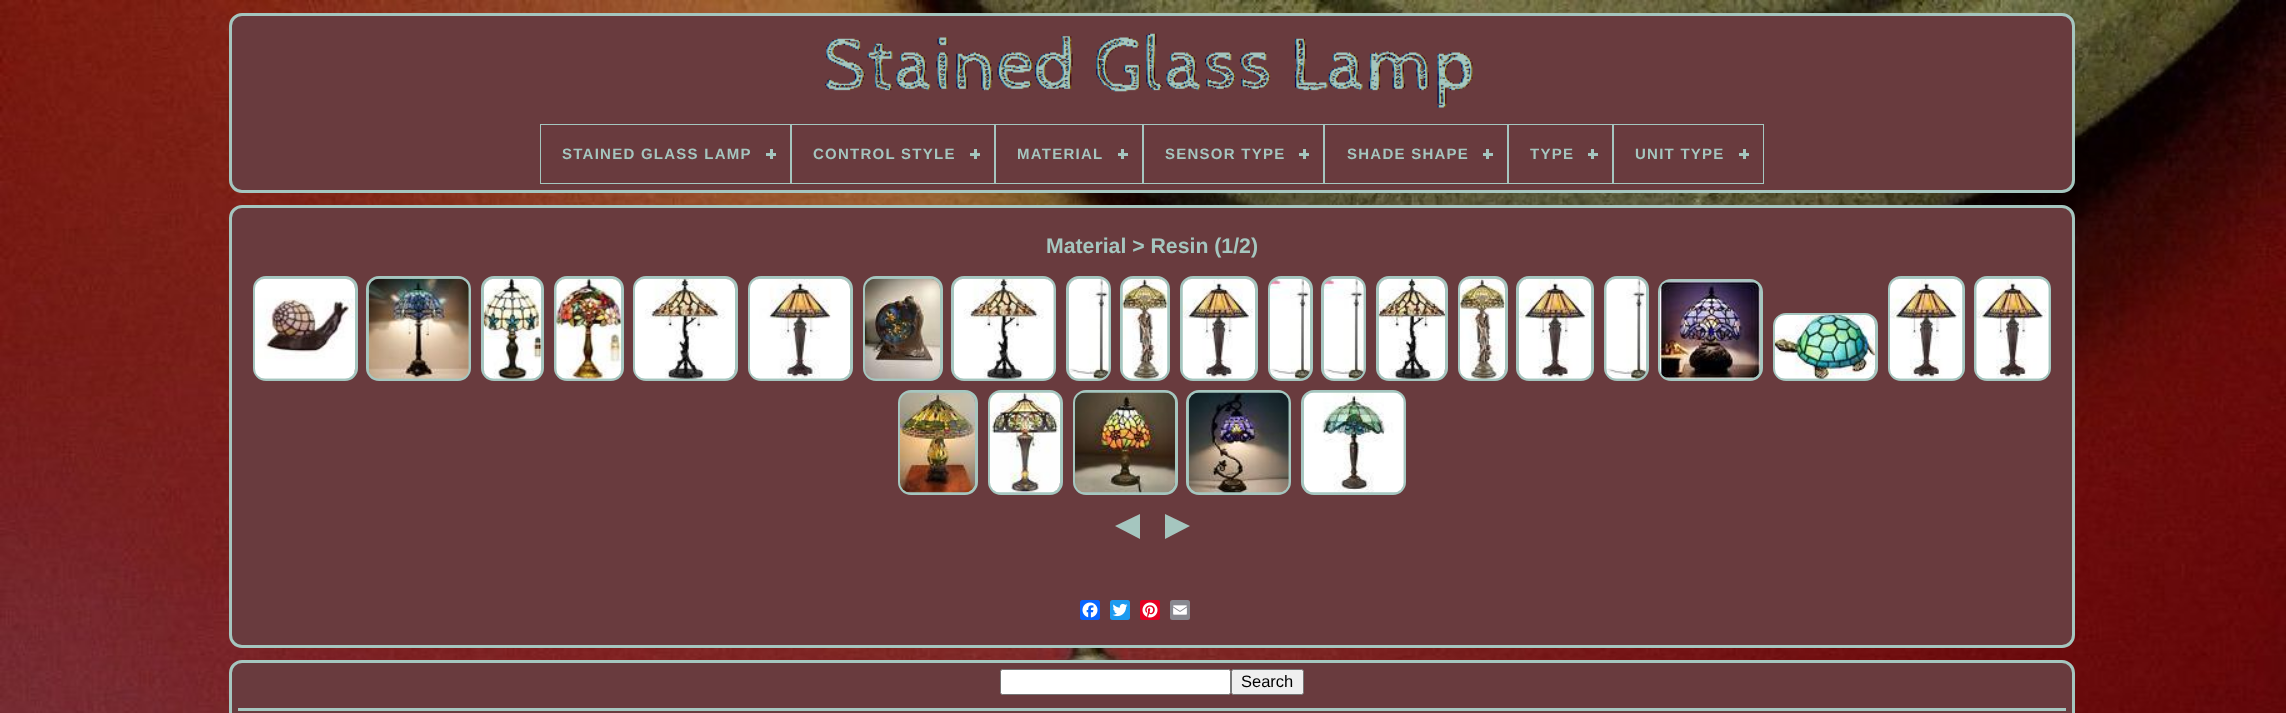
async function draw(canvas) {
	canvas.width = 2286;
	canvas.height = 713;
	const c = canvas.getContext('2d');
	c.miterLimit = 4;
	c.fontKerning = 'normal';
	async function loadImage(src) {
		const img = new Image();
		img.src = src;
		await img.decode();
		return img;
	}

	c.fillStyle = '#fff';
	c.fillRect(0, 0, 2286, 713);
	c.drawImage(await loadImage('img1.png'), 0, 0, 2286, 713);
	c.fillStyle = '#693b3e';
	c.beginPath();
	c.roundRect(230.5, 14.5, 1843, 177, 11.5);
	c.fill();
	c.strokeStyle = '#a5c6bf';
	c.lineWidth = 3;
	c.stroke();
	c.drawImage(await loadImage('img2.png'), 824, 33, 649, 75);
	c.lineWidth = 1;
	c.strokeRect(540.5, 124.5, 250, 59);
	c.letterSpacing = '1.25px';
	c.font = 'bold 15px Liberation Sans';
	c.fillStyle = '#a5c6bf';
	c.fillText('STAINED GLASS LAMP', 562, 159);
	c.fillRect(770, 149, 3, 10);
	c.fillRect(766, 153, 10, 3);
	c.strokeRect(791.5, 124.5, 203, 59);
	c.fillText('CONTROL STYLE', 813, 159);
	c.fillRect(974, 149, 3, 10);
	c.fillRect(970, 153, 10, 3);
	c.strokeRect(995.5, 124.5, 147, 59);
	c.fillText('MATERIAL', 1017, 159);
	c.fillRect(1121, 149, 3, 10);
	c.fillRect(1118, 153, 10, 3);
	c.strokeRect(1143.5, 124.5, 180, 59);
	c.fillText('SENSOR TYPE', 1165, 159);
	c.fillRect(1303, 149, 3, 10);
	c.fillRect(1299, 153, 10, 3);
	c.strokeRect(1324.5, 124.5, 183, 59);
	c.fillText('SHADE SHAPE', 1347, 159);
	c.fillRect(1486, 149, 3, 10);
	c.fillRect(1483, 153, 10, 3);
	c.strokeRect(1508.5, 124.5, 104, 59);
	c.fillText('TYPE', 1530, 159);
	c.fillRect(1591, 149, 3, 10);
	c.fillRect(1588, 153, 10, 3);
	c.strokeRect(1613.5, 124.5, 150, 59);
	c.fillText('UNIT TYPE', 1635, 159);
	c.fillRect(1743, 149, 3, 10);
	c.fillRect(1739, 153, 10, 3);
	c.fillStyle = '#693b3e';
	c.beginPath();
	c.roundRect(230.5, 206.5, 1843, 440, 11.5);
	c.fill();
	c.lineWidth = 3;
	c.stroke();
	c.letterSpacing = '0px';
	c.font = 'bold 21.25px Liberation Sans';
	c.fillStyle = '#a5c6bf';
	c.fillText('Material > Resin (1/2)', 1046, 253);
	c.beginPath();
	c.roundRect(254.5, 277.5, 102, 102, 11.5);
	c.stroke();
	c.beginPath();
	c.roundRect(367.5, 277.5, 102, 102, 11.5);
	c.stroke();
	c.beginPath();
	c.roundRect(482.5, 277.5, 60, 102, 11.5);
	c.stroke();
	c.beginPath();
	c.roundRect(555.5, 277.5, 67, 102, 11.5);
	c.stroke();
	c.beginPath();
	c.roundRect(634.5, 277.5, 102, 102, 11.5);
	c.stroke();
	c.beginPath();
	c.roundRect(749.5, 277.5, 102, 102, 11.5);
	c.stroke();
	c.beginPath();
	c.roundRect(864.5, 277.5, 77, 102, 11.5);
	c.stroke();
	c.beginPath();
	c.roundRect(952.5, 277.5, 102, 102, 11.5);
	c.stroke();
	c.beginPath();
	c.roundRect(1067.5, 277.5, 42, 102, 11.5);
	c.stroke();
	c.beginPath();
	c.roundRect(1121.5, 277.5, 47, 102, 11.5);
	c.stroke();
	c.beginPath();
	c.roundRect(1181.5, 277.5, 75, 102, 11.5);
	c.stroke();
	c.beginPath();
	c.roundRect(1269.5, 277.5, 42, 102, 11.5);
	c.stroke();
	c.beginPath();
	c.roundRect(1322.5, 277.5, 42, 102, 11.5);
	c.stroke();
	c.beginPath();
	c.roundRect(1377.5, 277.5, 69, 102, 11.5);
	c.stroke();
	c.beginPath();
	c.roundRect(1459.5, 277.5, 47, 102, 11.5);
	c.stroke();
	c.beginPath();
	c.roundRect(1517.5, 277.5, 75, 102, 11.5);
	c.stroke();
	c.beginPath();
	c.roundRect(1605.5, 277.5, 42, 102, 11.5);
	c.stroke();
	c.beginPath();
	c.roundRect(1889.5, 277.5, 74, 102, 11.5);
	c.stroke();
	c.beginPath();
	c.roundRect(1975.5, 277.5, 74, 102, 11.5);
	c.stroke();
	c.drawImage(await loadImage('img3.png'), 255, 278, 100, 101);
	c.drawImage(await loadImage('img4.png'), 368, 278, 101, 101);
	c.drawImage(await loadImage('img5.png'), 483, 278, 59, 101);
	c.drawImage(await loadImage('img6.png'), 556, 278, 66, 101);
	c.drawImage(await loadImage('img7.png'), 635, 278, 100, 101);
	c.drawImage(await loadImage('img8.png'), 750, 278, 100, 101);
	c.drawImage(await loadImage('img9.png'), 865, 278, 75, 101);
	c.drawImage(await loadImage('img10.png'), 953, 278, 101, 101);
	c.drawImage(await loadImage('img11.png'), 1068, 278, 41, 101);
	c.drawImage(await loadImage('img12.png'), 1122, 278, 46, 101);
	c.drawImage(await loadImage('img13.png'), 1182, 278, 73, 101);
	c.drawImage(await loadImage('img14.png'), 1270, 278, 40, 101);
	c.drawImage(await loadImage('img15.png'), 1323, 278, 41, 101);
	c.drawImage(await loadImage('img16.png'), 1378, 278, 67, 101);
	c.drawImage(await loadImage('img17.png'), 1460, 278, 45, 101);
	c.drawImage(await loadImage('img18.png'), 1518, 278, 74, 101);
	c.drawImage(await loadImage('img19.png'), 1606, 278, 41, 101);
	c.beginPath();
	c.roundRect(1659.5, 280.5, 102, 99, 11.5);
	c.stroke();
	c.drawImage(await loadImage('img20.png'), 1890, 278, 73, 101);
	c.drawImage(await loadImage('img21.png'), 1976, 278, 73, 101);
	c.drawImage(await loadImage('img22.png'), 1660, 281, 100, 98);
	c.beginPath();
	c.roundRect(1774.5, 314.5, 102, 65, 11.5);
	c.stroke();
	c.drawImage(await loadImage('img23.png'), 1775, 315, 100, 64);
	c.beginPath();
	c.roundRect(899.5, 391.5, 77, 102, 11.5);
	c.stroke();
	c.beginPath();
	c.roundRect(989.5, 391.5, 72, 102, 11.5);
	c.stroke();
	c.beginPath();
	c.roundRect(1074.5, 391.5, 102, 102, 11.5);
	c.stroke();
	c.beginPath();
	c.roundRect(1187.5, 391.5, 102, 102, 11.5);
	c.stroke();
	c.beginPath();
	c.roundRect(1302.5, 391.5, 102, 102, 11.5);
	c.stroke();
	c.drawImage(await loadImage('img24.png'), 900, 392, 75, 101);
	c.drawImage(await loadImage('img25.png'), 990, 392, 70, 101);
	c.drawImage(await loadImage('img26.png'), 1075, 392, 100, 101);
	c.drawImage(await loadImage('img27.png'), 1188, 392, 101, 101);
	c.drawImage(await loadImage('img28.png'), 1303, 392, 101, 101);
	c.beginPath();
	c.moveTo(1140, 514);
	c.lineTo(1140, 539);
	c.lineTo(1115, 526);
	c.closePath();
	c.fill();
	c.beginPath();
	c.moveTo(1165, 539);
	c.lineTo(1165, 514);
	c.lineTo(1190, 526);
	c.closePath();
	c.fill();
	c.fillStyle = '#0866ff';
	c.beginPath();
	c.roundRect(1080, 600, 20, 20, 2.5);
	c.fill();
	c.drawImage(await loadImage('img29.png'), 1082, 602, 16, 16);
	c.fillStyle = '#1d9bf0';
	c.beginPath();
	c.roundRect(1110, 600, 20, 20, 2.5);
	c.fill();
	c.drawImage(await loadImage('img30.png'), 1112, 603, 16, 14);
	c.fillStyle = '#e60023';
	c.beginPath();
	c.roundRect(1140, 600, 20, 20, 2.5);
	c.fill();
	c.drawImage(await loadImage('img31.png'), 1142, 602, 16, 16);
	c.fillStyle = '#888990';
	c.beginPath();
	c.roundRect(1170, 600, 20, 20, 2.5);
	c.fill();
	c.drawImage(await loadImage('img32.png'), 1173, 605, 14, 10);
	c.fillStyle = '#693b3e';
	c.beginPath();
	c.roundRect(230.5, 661.5, 1843, 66, 11.5);
	c.fill();
	c.stroke();
	c.fillStyle = '#fff';
	c.beginPath();
	c.roundRect(1000.5, 669.5, 230, 25, 2);
	c.fill();
	c.strokeStyle = '#767676';
	c.lineWidth = 1;
	c.stroke();
	c.fillStyle = '#efefef';
	c.beginPath();
	c.roundRect(1231.5, 669.5, 72, 25, 2);
	c.fill();
	c.stroke();
	c.font = '16.5px Liberation Sans';
	c.fillStyle = '#000';
	c.fillText('Search', 1241, 687);
	c.fillStyle = '#a5c6bf';
	c.fillRect(238, 708, 1828, 3);
}

draw(document.querySelector('canvas'));
